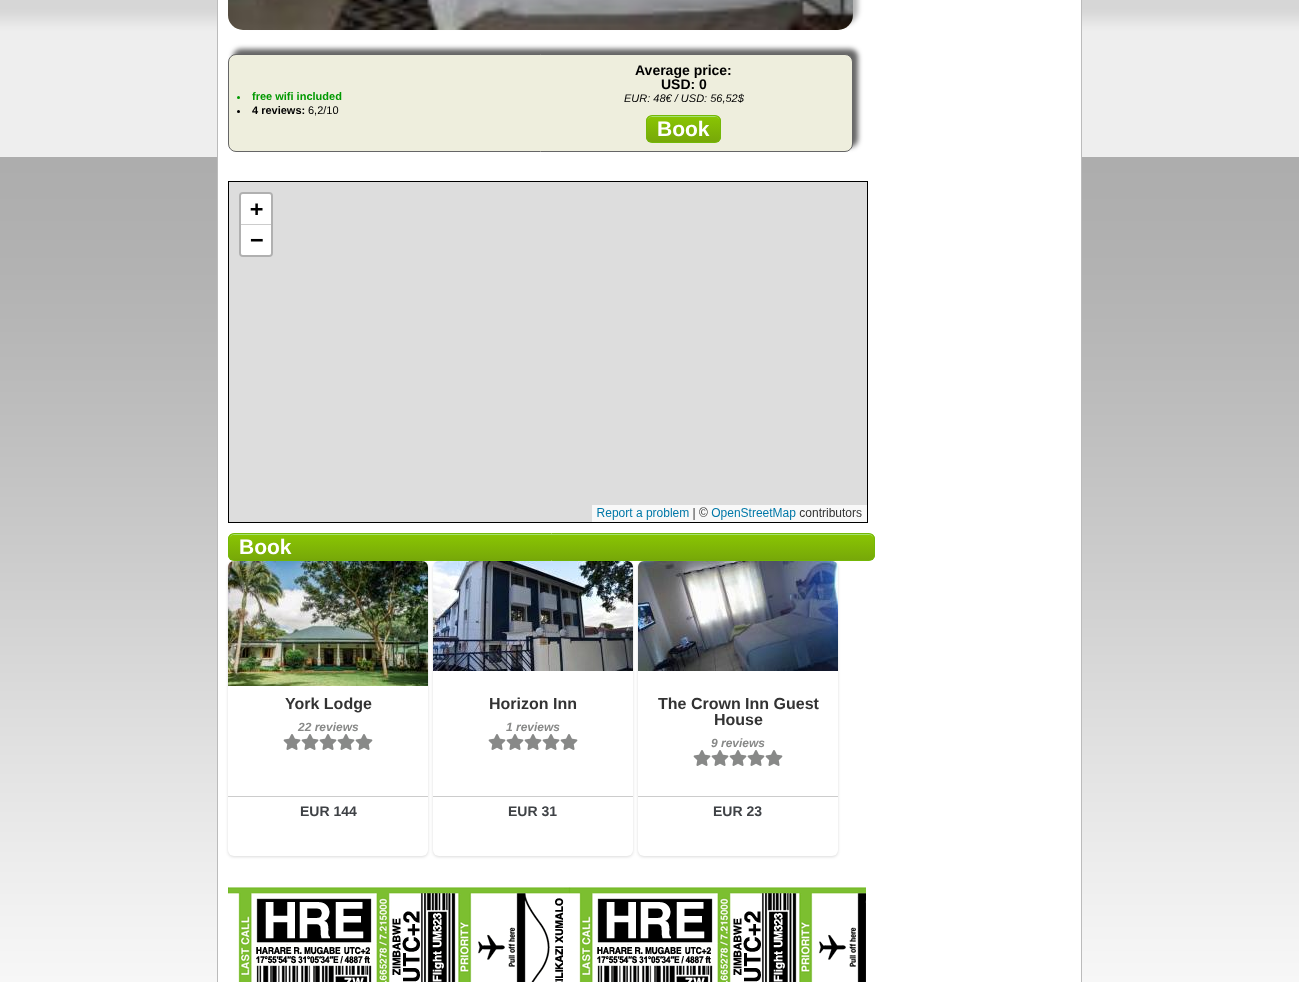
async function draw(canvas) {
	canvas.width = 1299;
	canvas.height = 982;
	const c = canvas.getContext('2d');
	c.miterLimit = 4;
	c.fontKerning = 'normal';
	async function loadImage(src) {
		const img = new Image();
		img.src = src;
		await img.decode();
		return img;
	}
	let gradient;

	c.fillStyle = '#fff';
	c.fillRect(0, 0, 1299, 982);
	c.drawImage(await loadImage('img1.png'), 0, 0, 1299, 982);
	for (const [x, y, w, h, color] of [
		[218, 0, 863, 982, '#fff'],
		[1081, 0, 1, 982, '#bbb'],
		[217, 0, 1, 982, '#bbb'],
	]) {
		c.fillStyle = color;
		c.fillRect(x, y, w, h);
	}
	c.fillStyle = '#0000004d';
	c.filter = 'blur(2.5px)';
	c.beginPath();
	c.roundRect(233, -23, 625, 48, 15);
	c.fill();
	c.filter = 'none';
	c.fillStyle = '#eed';
	c.beginPath();
	c.roundRect(228, -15, 625, 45, 15);
	c.fill();
	c.drawImage(await loadImage('img2.png'), 228, 0, 625, 30);
	c.fillStyle = '#00000099';
	c.filter = 'blur(2.5px)';
	c.beginPath();
	c.roundRect(233, 49, 625, 98, 8);
	c.fill();
	c.filter = 'none';
	c.fillStyle = '#eed';
	c.beginPath();
	c.roundRect(228.5, 54.5, 624, 97, 7.5);
	c.fill();
	c.strokeStyle = '#666';
	c.stroke();
	c.fillStyle = '#090';
	c.beginPath();
	c.arc(238.5, 97.5, 1.5, 0, 2 * Math.PI);
	c.fill();
	c.font = 'bold 11px Liberation Sans';
	c.fillText('free wifi included', 252, 100);
	c.fillStyle = '#000';
	c.beginPath();
	c.arc(238.5, 111.5, 1.5, 0, 2 * Math.PI);
	c.fill();
	c.fillText('4 reviews:', 252, 114);
	c.font = '11px Liberation Sans';
	c.fillText('6,2/10', 308, 114);
	c.font = 'bold 14px Liberation Sans';
	c.fillText('Average price:', 635, 75);
	c.fillText('USD: 0', 661, 89);
	c.font = 'italic 11px Liberation Sans';
	c.fillText('EUR: 48€ / USD: 56,52$', 624, 102);
	c.save();
	c.beginPath();
	c.roundRect(646, 115, 75, 28, 6);
	c.clip();
	gradient = c.createLinearGradient(684, 116, 684, 142);
	gradient.addColorStop(0.05, '#89c403');
	gradient.addColorStop(1, '#77a809');
	c.fillStyle = gradient;
	c.fillRect(646, 116, 75, 26);
	c.restore();
	c.fillStyle = '#a4e271';
	c.beginPath();
	c.moveTo(652, 117);
	c.lineTo(715, 117);
	c.bezierCurveTo(718, 117, 720, 119, 720, 122);
	c.bezierCurveTo(720, 114, 710, 116, 704, 116);
	c.lineTo(662, 116);
	c.bezierCurveTo(657, 116, 647, 114, 647, 122);
	c.bezierCurveTo(647, 119, 649, 117, 652, 117);
	c.closePath();
	c.fill();
	c.beginPath();
	c.roundRect(646.5, 115.5, 74, 27, 5.5);
	c.strokeStyle = '#74b807';
	c.stroke();
	c.font = 'bold 21px Liberation Sans';
	c.fillStyle = '#fff';
	c.fillText('Book', 657, 136);
	c.strokeStyle = '#000';
	c.strokeRect(228.5, 181.5, 639, 341);
	c.drawImage(await loadImage('img3.png'), 229, 182, 638, 340);
	c.save();
	c.beginPath();
	c.roundRect(228, 533, 647, 28, 6);
	c.clip();
	gradient = c.createLinearGradient(552, 534, 552, 560);
	gradient.addColorStop(0.05, '#89c403');
	gradient.addColorStop(1, '#77a809');
	c.fillStyle = gradient;
	c.fillRect(228, 534, 647, 26);
	c.restore();
	c.fillStyle = '#a4e271';
	c.beginPath();
	c.moveTo(234, 535);
	c.lineTo(869, 535);
	c.bezierCurveTo(872, 535, 874, 537, 874, 540);
	c.bezierCurveTo(874, 537, 872, 534, 869, 534);
	c.lineTo(234, 534);
	c.bezierCurveTo(231, 534, 229, 537, 229, 540);
	c.bezierCurveTo(229, 537, 231, 535, 234, 535);
	c.closePath();
	c.fill();
	c.beginPath();
	c.roundRect(228.5, 533.5, 646, 27, 5.5);
	c.strokeStyle = '#74b807';
	c.stroke();
	c.fillStyle = '#fff';
	c.fillText('Book', 239, 554);
	c.fillStyle = '#00000024';
	c.filter = 'blur(1.5px)';
	c.beginPath();
	c.roundRect(228, 562, 200, 295, 6);
	c.fill();
	c.filter = 'none';
	c.fillStyle = '#fff';
	c.beginPath();
	c.roundRect(228, 561, 200, 295, 6);
	c.fill();
	c.drawImage(await loadImage('img4.png'), 228, 561, 200, 125);
	c.fillStyle = '#ccc';
	c.fillRect(228, 796, 200, 1);
	c.font = 'bold 16px Liberation Sans';
	c.fillStyle = '#333';
	c.fillText('York Lodge', 285, 709);
	c.font = 'italic bold 12px Liberation Sans';
	c.fillStyle = '#888988';
	c.fillText('22 reviews', 298, 731);
	c.drawImage(await loadImage('img5.png'), 283, 734, 18, 16);
	c.drawImage(await loadImage('img5.png'), 301, 734, 18, 16);
	c.drawImage(await loadImage('img5.png'), 319, 734, 18, 16);
	c.drawImage(await loadImage('img5.png'), 337, 734, 18, 16);
	c.drawImage(await loadImage('img5.png'), 355, 734, 18, 16);
	c.font = 'bold 14px Liberation Sans';
	c.fillStyle = '#3f4246';
	c.fillText('EUR 144', 300, 816);
	c.fillStyle = '#00000024';
	c.filter = 'blur(1.5px)';
	c.beginPath();
	c.roundRect(433, 562, 200, 295, 6);
	c.fill();
	c.filter = 'none';
	c.fillStyle = '#fff';
	c.beginPath();
	c.roundRect(433, 561, 200, 295, 6);
	c.fill();
	c.drawImage(await loadImage('img6.png'), 433, 561, 200, 110);
	c.fillStyle = '#ccc';
	c.fillRect(433, 796, 200, 1);
	c.font = 'bold 16px Liberation Sans';
	c.fillStyle = '#333';
	c.fillText('Horizon Inn', 489, 709);
	c.font = 'italic bold 12px Liberation Sans';
	c.fillStyle = '#888988';
	c.fillText('1 reviews', 506, 731);
	c.drawImage(await loadImage('img5.png'), 488, 734, 18, 16);
	c.drawImage(await loadImage('img5.png'), 506, 734, 18, 16);
	c.drawImage(await loadImage('img5.png'), 524, 734, 18, 16);
	c.drawImage(await loadImage('img5.png'), 542, 734, 18, 16);
	c.drawImage(await loadImage('img5.png'), 560, 734, 18, 16);
	c.font = 'bold 14px Liberation Sans';
	c.fillStyle = '#3f4246';
	c.fillText('EUR 31', 508, 816);
	c.fillStyle = '#00000024';
	c.filter = 'blur(1.5px)';
	c.beginPath();
	c.roundRect(638, 562, 200, 295, 6);
	c.fill();
	c.filter = 'none';
	c.fillStyle = '#fff';
	c.beginPath();
	c.roundRect(638, 561, 200, 295, 6);
	c.fill();
	c.drawImage(await loadImage('img7.png'), 638, 561, 200, 110);
	c.fillStyle = '#ccc';
	c.fillRect(638, 796, 200, 1);
	c.font = 'bold 16px Liberation Sans';
	c.fillStyle = '#333';
	c.fillText('The Crown Inn Guest', 658, 709);
	c.fillText('House', 714, 725);
	c.font = 'italic bold 12px Liberation Sans';
	c.fillStyle = '#888988';
	c.fillText('9 reviews', 711, 747);
	c.drawImage(await loadImage('img5.png'), 693, 750, 18, 16);
	c.drawImage(await loadImage('img5.png'), 711, 750, 18, 16);
	c.drawImage(await loadImage('img5.png'), 729, 750, 18, 16);
	c.drawImage(await loadImage('img5.png'), 747, 750, 18, 16);
	c.drawImage(await loadImage('img5.png'), 765, 750, 18, 16);
	c.font = 'bold 14px Liberation Sans';
	c.fillStyle = '#3f4246';
	c.fillText('EUR 23', 713, 816);
	c.drawImage(await loadImage('img8.png'), 228, 887, 638, 95);
}

draw(document.querySelector('canvas'));
